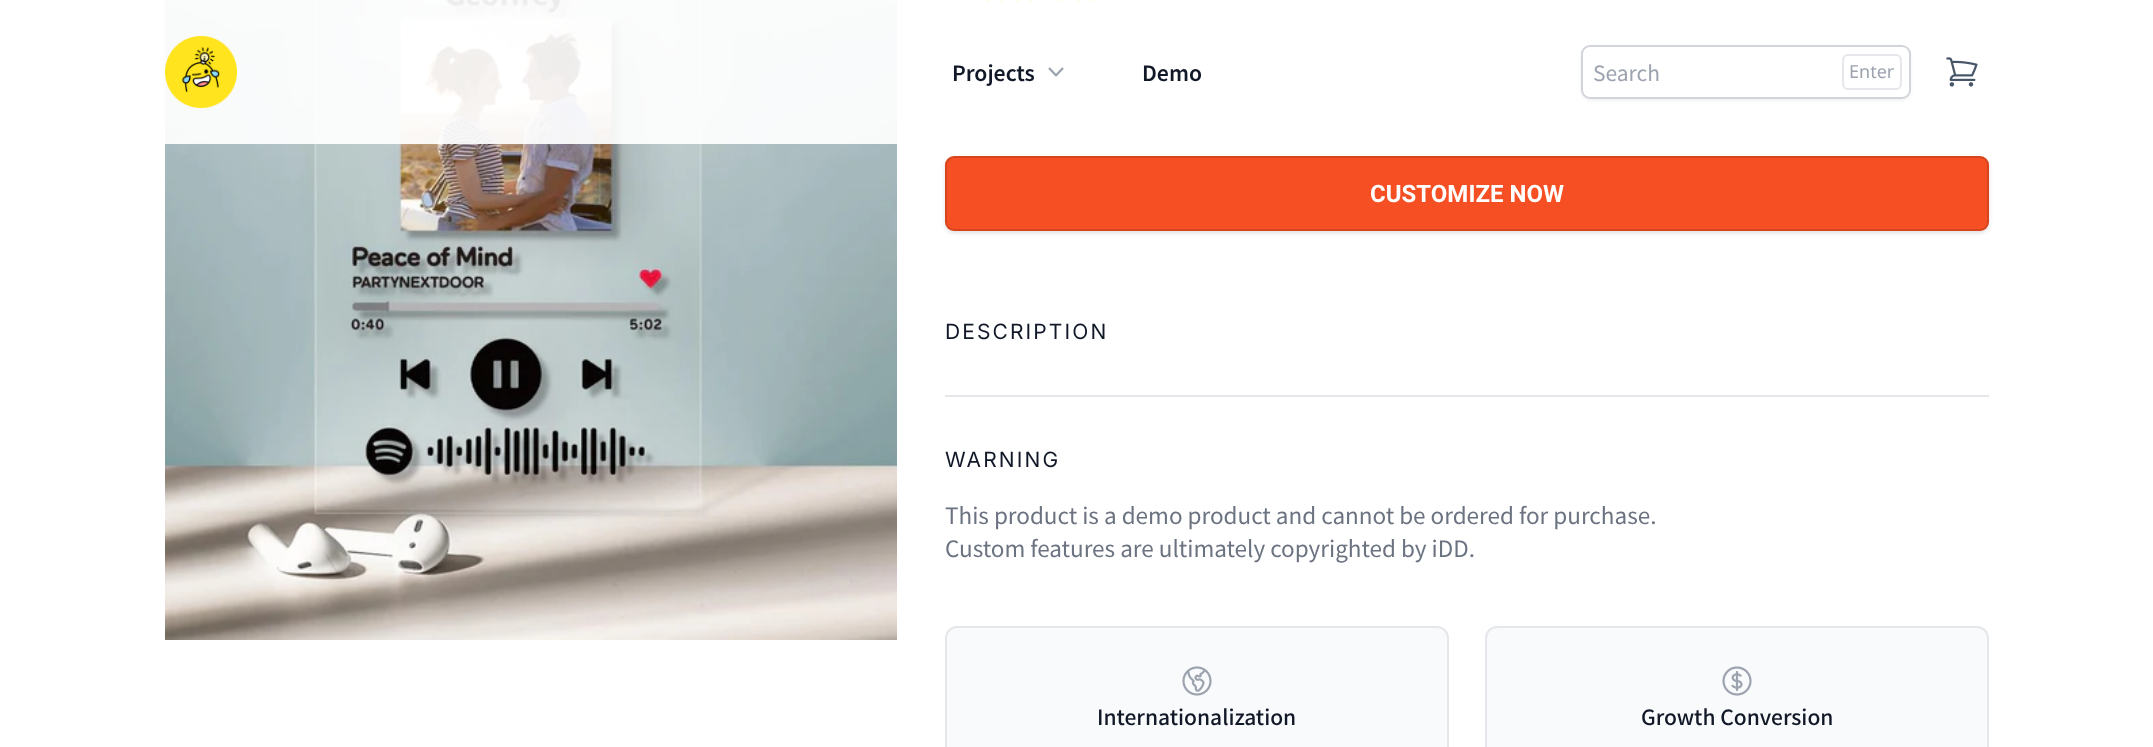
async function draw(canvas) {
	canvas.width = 2153;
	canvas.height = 747;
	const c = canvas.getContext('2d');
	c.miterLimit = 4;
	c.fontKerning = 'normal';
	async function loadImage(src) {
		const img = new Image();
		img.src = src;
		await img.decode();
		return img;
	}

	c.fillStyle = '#fff';
	c.fillRect(0, 0, 2153, 747);
	c.drawImage(await loadImage('img4.png'), 165, 0, 732, 640);
	c.drawImage(await loadImage('img5.png'), 986, 0, 17, 2);
	c.drawImage(await loadImage('img5.png'), 1016, 0, 17, 2);
	c.drawImage(await loadImage('img5.png'), 1046, 0, 17, 2);
	c.drawImage(await loadImage('img5.png'), 1076, 0, 17, 2);
	c.drawImage(await loadImage('img6.png'), 1106, 0, 17, 2);
	c.fillStyle = '#ffffffeb';
	c.fillRect(165, 0, 958, 144);
	c.drawImage(await loadImage('img1.png'), 165, 36, 72, 72);
	c.font = '600 21px Noto Sans SC';
	c.fillStyle = '#111827';
	c.fillText('Projects', 952, 81);
	c.drawImage(await loadImage('img2.png'), 1048, 67, 16, 10);
	c.fillText('Demo', 1142, 81);
	c.save();
	c.beginPath();
	c.moveTo(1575, 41);
	c.lineTo(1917, 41);
	c.lineTo(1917, 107);
	c.lineTo(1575, 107);
	c.closePath();
	c.moveTo(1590, 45);
	c.lineTo(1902, 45);
	c.bezierCurveTo(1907, 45, 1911, 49, 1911, 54);
	c.lineTo(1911, 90);
	c.bezierCurveTo(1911, 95, 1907, 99, 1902, 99);
	c.lineTo(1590, 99);
	c.bezierCurveTo(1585, 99, 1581, 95, 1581, 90);
	c.lineTo(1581, 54);
	c.bezierCurveTo(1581, 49, 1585, 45, 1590, 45);
	c.closePath();
	c.clip('evenodd');
	c.fillStyle = '#0000000d';
	c.filter = 'blur(1.5px)';
	c.beginPath();
	c.roundRect(1581, 47, 330, 54, 9);
	c.fill();
	c.filter = 'none';
	c.restore();
	c.beginPath();
	c.roundRect(1582, 46, 328, 52, 8);
	c.strokeStyle = '#d1d5db';
	c.lineWidth = 2;
	c.stroke();
	c.font = '21px Noto Sans SC';
	c.fillStyle = '#9ca3af';
	c.fillText('Search', 1593, 81);
	c.beginPath();
	c.roundRect(1843, 55, 58, 34, 5);
	c.strokeStyle = '#e5e7eb';
	c.stroke();
	c.font = '18px Noto Sans';
	c.fillText('Enter', 1849, 78);
	c.drawImage(await loadImage('img3.png'), 1946, 57, 32, 30);
	c.fillStyle = '#0000001f';
	c.filter = 'blur(2px)';
	c.beginPath();
	c.roundRect(945, 158, 1044, 75, 9);
	c.fill();
	c.filter = 'none';
	c.fillStyle = '#f54f23';
	c.beginPath();
	c.roundRect(945, 156, 1044, 75, 9);
	c.fill();
	c.beginPath();
	c.roundRect(946, 157, 1042, 73, 8);
	c.strokeStyle = '#0000001f';
	c.stroke();
	c.font = 'bold 24px Roboto';
	c.fillStyle = '#fff';
	c.fillText('CUSTOMIZE NOW', 1370, 202);
	c.letterSpacing = '2.1px';
	c.font = '21px Inter';
	c.fillStyle = '#111827';
	c.fillText('DESCRIPTION', 945, 339);
	c.fillStyle = '#e5e7eb';
	c.fillRect(945, 395, 1044, 2);
	c.fillStyle = '#111827';
	c.fillText('WARNING', 945, 467);
	c.letterSpacing = '0px';
	c.font = '22.5px Noto Sans SC';
	c.fillStyle = '#6b7280';
	c.fillText('This product is a demo product and cannot be ordered for purchase.', 945, 524);
	c.fillText('Custom features are ultimately copyrighted by iDD.', 945, 557);
	c.fillStyle = '#f9fafb';
	c.beginPath();
	c.roundRect(946, 627, 502, 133, 11);
	c.fill();
	c.strokeStyle = '#e5e7eb';
	c.stroke();
	c.drawImage(await loadImage('img7.png'), 1182, 666, 30, 30);
	c.font = '500 21px Noto Sans SC';
	c.fillStyle = '#111827';
	c.fillText('Internationalization', 1097, 725);
	c.fillStyle = '#f9fafb';
	c.beginPath();
	c.roundRect(1486, 627, 502, 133, 11);
	c.fill();
	c.stroke();
	c.drawImage(await loadImage('img8.png'), 1722, 666, 30, 30);
	c.fillStyle = '#111827';
	c.fillText('Growth Conversion', 1641, 725);
}

draw(document.querySelector('canvas'));
